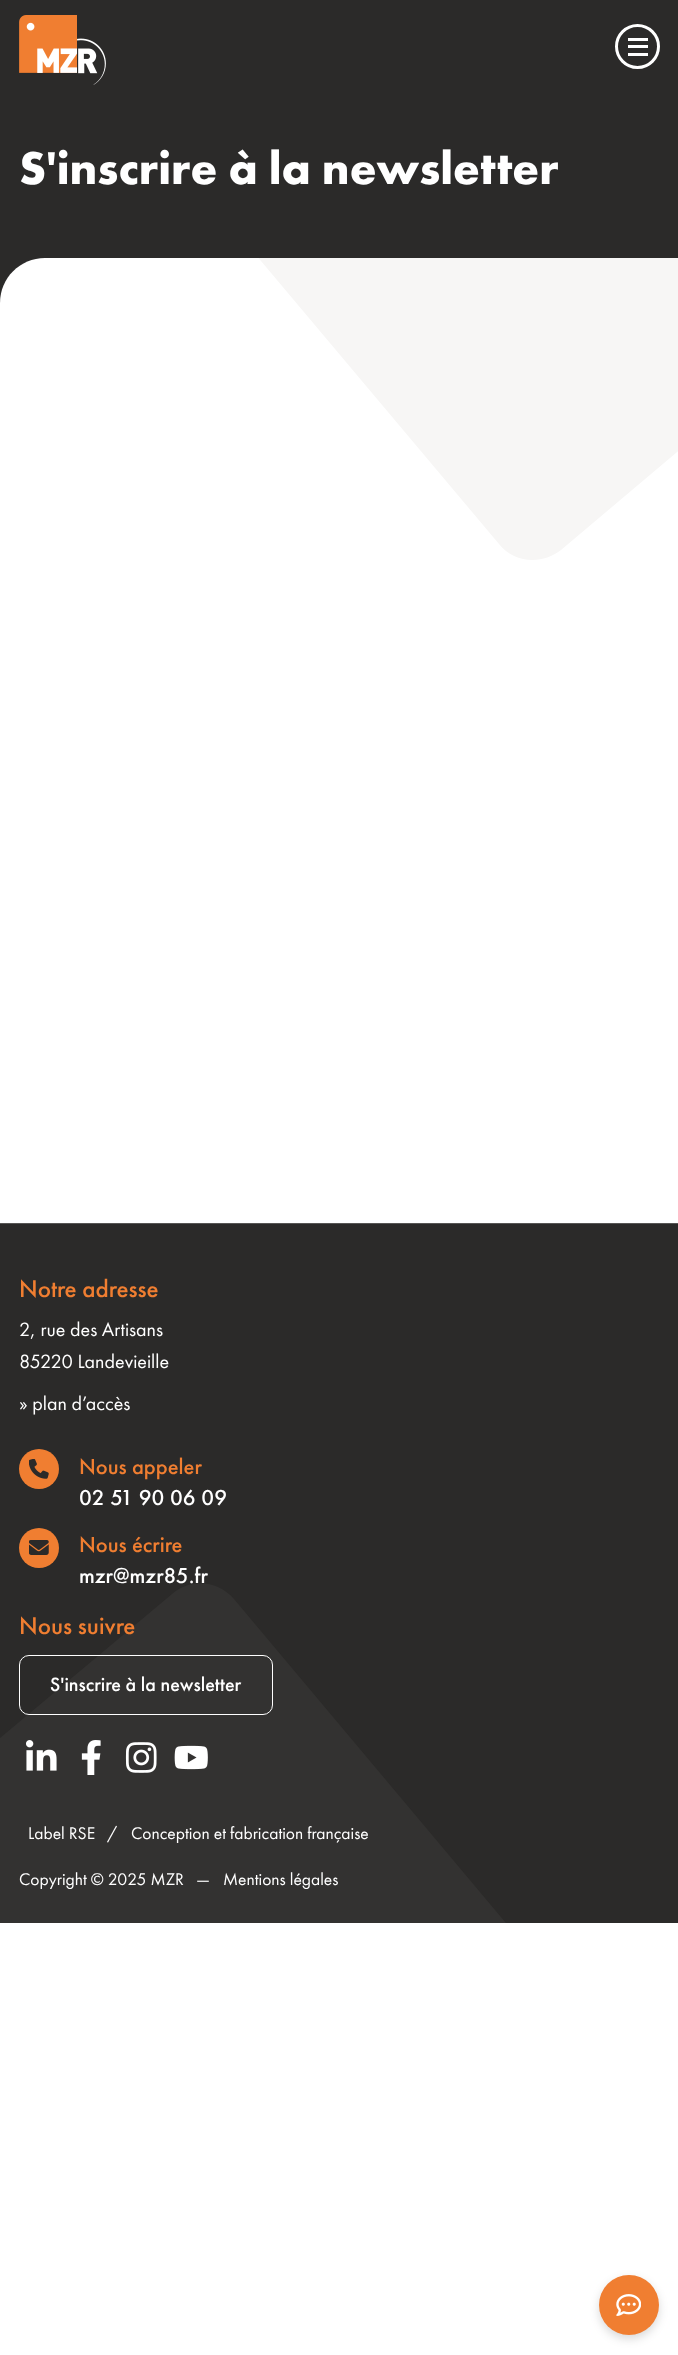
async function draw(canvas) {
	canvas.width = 678;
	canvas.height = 2355;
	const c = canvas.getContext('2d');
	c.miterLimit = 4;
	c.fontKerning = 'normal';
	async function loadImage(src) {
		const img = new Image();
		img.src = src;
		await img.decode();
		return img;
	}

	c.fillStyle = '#fff';
	c.fillRect(0, 0, 678, 2355);
	c.fillStyle = '#2b2a29';
	c.fillRect(0, 0, 678, 1923);
	c.drawImage(await loadImage('img1.png'), 19, 15, 87, 70);
	c.beginPath();
	c.arc(637.5, 46.5, 21, 0, 2 * Math.PI);
	c.strokeStyle = '#fff';
	c.lineWidth = 3;
	c.stroke();
	for (const [x, y, w, h, color] of [
		[628, 45, 20, 3, '#fff'],
		[628, 38, 20, 3, '#fff'],
		[628, 53, 20, 3, '#fff'],
	]) {
		c.fillStyle = color;
		c.fillRect(x, y, w, h);
	}
	c.font = 'bold 47.5px Futura PT';
	c.fillText('S\'inscrire à la newsletter', 19, 184);
	c.beginPath();
	c.moveTo(45, 258);
	c.lineTo(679, 258);
	c.lineTo(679, 1223);
	c.lineTo(0, 1223);
	c.lineTo(0, 303);
	c.bezierCurveTo(0, 278, 20, 258, 45, 258);
	c.closePath();
	c.fill();
	c.save();
	c.beginPath();
	c.rect(0, 258, 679, 965);
	c.clip();
	c.fillStyle = '#f7f6f5';
	c.beginPath();
	c.moveTo(532, -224);
	c.lineTo(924, 244);
	c.lineTo(561, 550);
	c.bezierCurveTo(542, 565, 514, 563, 499, 544);
	c.lineTo(134, 110);
	c.closePath();
	c.fill();
	c.restore();
	c.fillStyle = '#575655';
	c.fillRect(0, 1223, 678, 1);
	c.font = '500 25px Futura PT';
	c.fillStyle = '#f07e31';
	c.fillText('Notre adresse', 19, 1297);
	c.font = '20px Futura PT';
	c.fillStyle = '#fff';
	for (const [text, x, y] of [
		['2, rue des Artisans', 19, 1336],
		['85220 Landevieille', 19, 1368],
		['» plan d’accès', 19, 1410],
	]) {
		c.fillText(text, x, y);
	}
	c.fillStyle = '#f07e31';
	c.beginPath();
	c.arc(39, 1469, 20, 0, 2 * Math.PI);
	c.fill();
	c.drawImage(await loadImage('img2.png'), 29, 1459, 20, 20);
	c.font = '500 22.5px Futura PT';
	c.fillText('Nous appeler', 79, 1474);
	c.wordSpacing = '0.5px';
	c.fillStyle = '#fff';
	c.fillText('02 51 90 06 09', 79, 1505);
	c.fillStyle = '#f07e31';
	c.beginPath();
	c.arc(39, 1548, 20, 0, 2 * Math.PI);
	c.fill();
	c.drawImage(await loadImage('img3.png'), 29, 1540, 20, 15);
	c.wordSpacing = '0px';
	c.fillText('Nous écrire', 79, 1552);
	c.save();
	c.beginPath();
	c.rect(0, 0, 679, 1923);
	c.clip();
	c.fillStyle = '#333231';
	c.beginPath();
	c.moveTo(234, 1599);
	c.lineTo(511, 1929);
	c.lineTo(202, 2189);
	c.lineTo(-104, 1825);
	c.lineTo(172, 1594);
	c.bezierCurveTo(190, 1578, 218, 1580, 234, 1599);
	c.closePath();
	c.fill();
	c.restore();
	c.fillStyle = '#fff';
	c.fillText('mzr@mzr85.fr', 79, 1583);
	c.font = '500 25px Futura PT';
	c.fillStyle = '#f07e31';
	c.fillText('Nous suivre', 19, 1634);
	c.beginPath();
	c.roundRect(19.5, 1655.5, 253, 59, 9.5);
	c.lineWidth = 1;
	c.stroke();
	c.font = '500 20px Futura PT';
	c.fillStyle = '#fff';
	c.fillText('S\'inscrire à la newsletter', 50, 1691);
	c.drawImage(await loadImage('img4.png'), 26, 1740, 31, 31);
	c.drawImage(await loadImage('img5.png'), 81, 1740, 20, 35);
	c.drawImage(await loadImage('img6.png'), 125, 1742, 32, 31);
	c.drawImage(await loadImage('img7.png'), 174, 1745, 34, 25);
	c.font = '17.5px Futura PT';
	for (const [text, x, y] of [
		['Label RSE', 28, 1839],
		['/', 107, 1839],
		['Conception et fabrication française', 131, 1839],
		['Copyright © 2025 MZR', 19, 1885],
		['—', 196, 1885],
		['Mentions légales', 223, 1885],
	]) {
		c.fillText(text, x, y);
	}
	c.fillStyle = '#00000026';
	c.filter = 'blur(5px)';
	c.beginPath();
	c.roundRect(599, 2279, 60, 60, 30);
	c.fill();
	c.filter = 'none';
	c.fillStyle = '#f07e31';
	c.beginPath();
	c.arc(629, 2305, 30, 0, 2 * Math.PI);
	c.fill();
	c.drawImage(await loadImage('img8.png'), 616, 2294, 25, 22);
}

draw(document.querySelector('canvas'));
